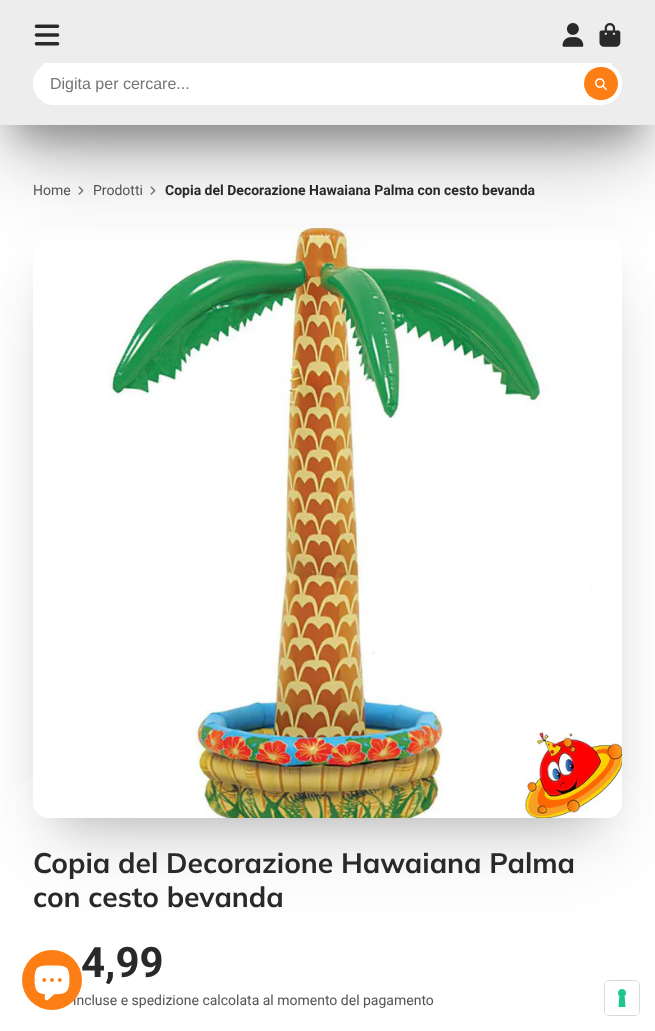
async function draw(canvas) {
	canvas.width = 655;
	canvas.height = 1031;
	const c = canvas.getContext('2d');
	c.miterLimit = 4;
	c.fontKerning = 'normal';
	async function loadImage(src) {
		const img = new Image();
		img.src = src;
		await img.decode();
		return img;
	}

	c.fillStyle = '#fff';
	c.fillRect(0, 0, 655, 1031);
	c.drawImage(await loadImage('img5.png'), 78, 186, 6, 9);
	c.drawImage(await loadImage('img5.png'), 150, 186, 6, 9);
	c.fillStyle = '#1c1c1c66';
	c.filter = 'blur(19px)';
	c.beginPath();
	c.rect(14, 40, 627, 97);
	c.fill();
	c.filter = 'none';
	c.save();
	c.beginPath();
	c.moveTo(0, 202);
	c.lineTo(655, 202);
	c.lineTo(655, 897);
	c.lineTo(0, 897);
	c.closePath();
	c.moveTo(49, 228);
	c.lineTo(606, 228);
	c.bezierCurveTo(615, 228, 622, 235, 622, 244);
	c.lineTo(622, 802);
	c.bezierCurveTo(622, 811, 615, 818, 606, 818);
	c.lineTo(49, 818);
	c.bezierCurveTo(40, 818, 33, 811, 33, 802);
	c.lineTo(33, 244);
	c.bezierCurveTo(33, 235, 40, 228, 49, 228);
	c.closePath();
	c.clip('evenodd');
	c.fillStyle = '#1c1c1c4d';
	c.filter = 'blur(26px)';
	c.beginPath();
	c.rect(59, 281, 537, 537);
	c.fill();
	c.filter = 'none';
	c.restore();
	c.save();
	c.beginPath();
	c.moveTo(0, 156);
	c.lineTo(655, 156);
	c.lineTo(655, 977);
	c.lineTo(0, 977);
	c.closePath();
	c.moveTo(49, 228);
	c.lineTo(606, 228);
	c.bezierCurveTo(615, 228, 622, 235, 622, 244);
	c.lineTo(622, 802);
	c.bezierCurveTo(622, 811, 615, 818, 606, 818);
	c.lineTo(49, 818);
	c.bezierCurveTo(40, 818, 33, 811, 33, 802);
	c.lineTo(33, 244);
	c.bezierCurveTo(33, 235, 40, 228, 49, 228);
	c.closePath();
	c.clip('evenodd');
	c.fillStyle = '#1c1c1c1a';
	c.filter = 'blur(44px)';
	c.beginPath();
	c.rect(51, 289, 554, 555);
	c.fill();
	c.filter = 'none';
	c.restore();
	c.drawImage(await loadImage('img6.png'), 37, 228, 585, 590);
	c.fillStyle = '#1c1c1c4d';
	c.filter = 'blur(44px)';
	c.beginPath();
	c.rect(14, 58, 627, 97);
	c.fill();
	c.filter = 'none';
	c.fillStyle = '#ededed';
	c.fillRect(0, 0, 655, 125);
	c.drawImage(await loadImage('img1.png'), 34, 24, 26, 22);
	c.drawImage(await loadImage('img2.png'), 562, 23, 22, 24);
	c.drawImage(await loadImage('img3.png'), 599, 23, 22, 24);
	c.fillStyle = '#fff';
	c.beginPath();
	c.roundRect(33, 63, 589, 40, 20);
	c.fill();
	c.fillRect(43, 63, 569, 40);
	c.beginPath();
	c.roundRect(33, 63, 589, 42, 21);
	c.fill();
	c.font = '16px Liberation Sans';
	c.fillStyle = '#757575';
	c.fillText('Digita per cercare...', 50, 89);
	c.fillStyle = '#fd7e14';
	c.beginPath();
	c.roundRect(584, 67, 34, 33, 16.5);
	c.fill();
	c.drawImage(await loadImage('img4.png'), 595, 78, 12, 12);
	c.font = '14px Roboto';
	c.fillStyle = '#545454';
	c.fillText('Home', 33, 195);
	c.fillText('Prodotti', 93, 195);
	c.font = 'bold 14px Roboto';
	c.fillStyle = '#292929';
	c.fillText('Copia del Decorazione Hawaiana Palma con cesto bevanda', 165, 195);
	c.font = 'bold 28.2px Muli';
	c.fillText('Copia del Decorazione Hawaiana Palma', 33, 873);
	c.fillText('con cesto bevanda', 33, 907);
	c.font = 'bold 42px Roboto';
	c.fillText('4,99', 81, 977);
	c.font = '14px Roboto';
	c.fillStyle = '#545454';
	c.fillText('incluse e spedizione calcolata al momento del pagamento', 73, 1005);
	c.fillStyle = '#fd7e14';
	c.beginPath();
	c.arc(52, 980, 30, 0, 2 * Math.PI);
	c.fill();
	c.drawImage(await loadImage('img7.png'), 34, 965, 36, 36);
	c.beginPath();
	c.roundRect(604.5, 980.5, 35, 35, 4.5);
	c.strokeStyle = '#d9d9d9';
	c.stroke();
	c.fillStyle = '#fff';
	c.beginPath();
	c.roundRect(605, 981, 34, 34, 4);
	c.fill();
	c.drawImage(await loadImage('img8.png'), 618, 989, 8, 18);
}

draw(document.querySelector('canvas'));
